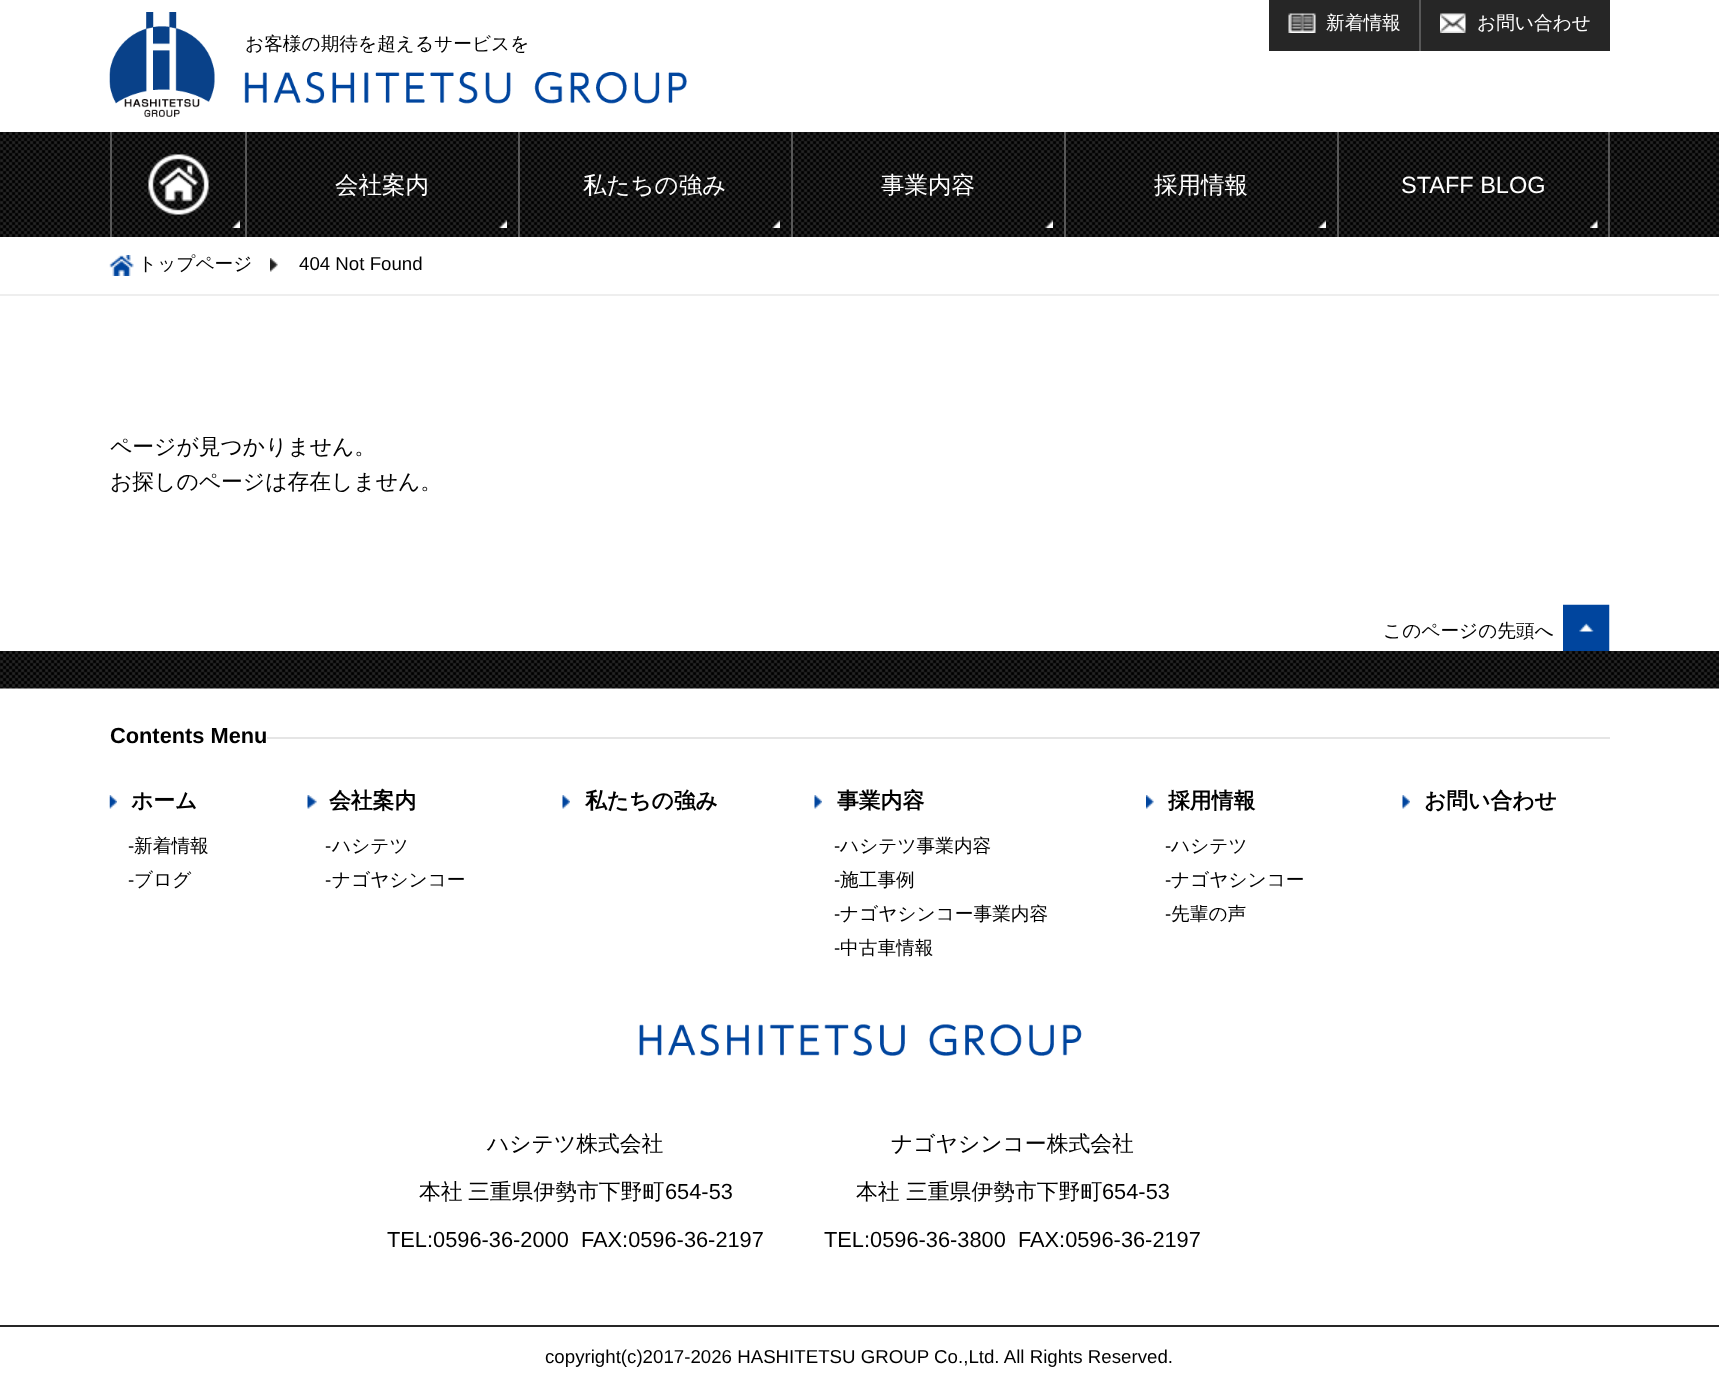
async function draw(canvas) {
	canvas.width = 1719;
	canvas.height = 1373;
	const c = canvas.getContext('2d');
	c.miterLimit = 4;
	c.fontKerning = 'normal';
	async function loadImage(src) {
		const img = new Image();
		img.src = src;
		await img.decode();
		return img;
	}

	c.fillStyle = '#fff';
	c.fillRect(0, 0, 1719, 1373);
	c.drawImage(await loadImage('img1.png'), 109, 12, 106, 105);
	c.fillStyle = '#262626';
	c.fillRect(1269, 0, 150, 51);
	c.fillStyle = '#585858';
	c.fillRect(1419, 0, 2, 51);
	c.drawImage(await loadImage('img2.png'), 1288, 13, 28, 20);
	c.font = '500 18.7px WenQuanYi Zen Hei';
	c.fillStyle = '#fff';
	c.fillText('新着情報', 1326, 29);
	c.fillStyle = '#262626';
	c.fillRect(1421, 0, 189, 51);
	c.drawImage(await loadImage('img3.png'), 1440, 13, 26, 20);
	c.fillStyle = '#fff';
	c.fillText('お問い合わせ', 1477, 29);
	c.fillStyle = '#000';
	c.fillText('お客様の期待を超えるサービスを', 245, 50);
	c.drawImage(await loadImage('img4.png'), 244, 72, 443, 32);
	c.drawImage(await loadImage('img5.png'), 0, 132, 1719, 105);
	c.drawImage(await loadImage('img6.png'), 232, 220, 8, 8);
	c.fillStyle = '#585858';
	c.fillRect(110, 132, 2, 105);
	c.drawImage(await loadImage('img7.png'), 148, 154, 61, 61);
	c.drawImage(await loadImage('img8.png'), 499, 220, 8, 8);
	c.fillRect(245, 132, 2, 105);
	c.font = '500 23.5px WenQuanYi Zen Hei';
	c.fillStyle = '#fff';
	c.fillText('会社案内', 335, 193);
	c.drawImage(await loadImage('img6.png'), 772, 220, 8, 8);
	c.fillStyle = '#585858';
	c.fillRect(518, 132, 2, 105);
	c.fillStyle = '#fff';
	c.fillText('私たちの強み', 583, 193);
	c.drawImage(await loadImage('img9.png'), 1045, 220, 8, 8);
	c.fillStyle = '#585858';
	c.fillRect(791, 132, 2, 105);
	c.fillStyle = '#fff';
	c.fillText('事業内容', 881, 193);
	c.drawImage(await loadImage('img10.png'), 1318, 220, 8, 8);
	c.fillStyle = '#585858';
	c.fillRect(1064, 132, 2, 105);
	c.fillStyle = '#fff';
	c.fillText('採用情報', 1154, 193);
	c.drawImage(await loadImage('img11.png'), 1590, 220, 8, 8);
	c.fillStyle = '#585858';
	c.fillRect(1608, 132, 2, 105);
	c.fillRect(1337, 132, 2, 105);
	c.font = '23.5px Liberation Sans';
	c.fillStyle = '#fff';
	c.fillText('STAFF BLOG', 1401, 193);
	c.fillStyle = '#eee';
	c.fillRect(0, 294, 1719, 2);
	c.drawImage(await loadImage('img12.png'), 109, 255, 25, 21);
	c.font = '500 18.7px WenQuanYi Zen Hei';
	c.fillStyle = '#000';
	c.fillText('トップページ', 138, 270);
	c.drawImage(await loadImage('img13.png'), 270, 258, 8, 14);
	c.font = '18.7px Liberation Sans';
	c.fillText('404 Not Found', 299, 270);
	c.font = '500 21.8px WenQuanYi Zen Hei';
	c.fillText('ページが見つかりません。', 110, 454);
	c.fillText('お探しのページは存在しません。', 110, 489);
	c.font = '500 18.7px WenQuanYi Zen Hei';
	c.fillText('このページの先頭へ', 1383, 637);
	c.drawImage(await loadImage('img14.png'), 1563, 604, 47, 47);
	c.drawImage(await loadImage('img15.png'), 0, 651, 1719, 38);
	c.font = 'bold 21.8px Liberation Sans';
	c.fillText('Contents Menu', 110, 743);
	c.fillStyle = '#e5e5e5';
	c.fillRect(267, 737, 1343, 2);
	c.drawImage(await loadImage('img16.png'), 109, 795, 8, 14);
	c.font = 'bold 21.8px WenQuanYi Zen Hei';
	c.fillStyle = '#000';
	c.fillText('ホーム', 131, 808);
	c.font = '18.7px Liberation Sans';
	c.fillText('-', 128, 852);
	c.font = '500 18.7px WenQuanYi Zen Hei';
	c.fillText('新着情報', 134, 852);
	c.font = '18.7px Liberation Sans';
	c.fillText('-', 128, 886);
	c.font = '500 18.7px WenQuanYi Zen Hei';
	c.fillText('ブログ', 134, 886);
	c.drawImage(await loadImage('img17.png'), 307, 795, 10, 14);
	c.font = 'bold 21.8px WenQuanYi Zen Hei';
	c.fillText('会社案内', 329, 808);
	c.font = '18.7px Liberation Sans';
	c.fillText('-', 325, 852);
	c.font = '500 18.7px WenQuanYi Zen Hei';
	c.fillText('ハシテツ', 332, 852);
	c.font = '18.7px Liberation Sans';
	c.fillText('-', 325, 886);
	c.font = '500 18.7px WenQuanYi Zen Hei';
	c.fillText('ナゴヤシンコー', 332, 886);
	c.drawImage(await loadImage('img18.png'), 562, 795, 8, 14);
	c.font = 'bold 21.8px WenQuanYi Zen Hei';
	c.fillText('私たちの強み', 585, 808);
	c.drawImage(await loadImage('img19.png'), 814, 795, 8, 14);
	c.fillText('事業内容', 837, 808);
	c.font = '18.7px Liberation Sans';
	c.fillText('-', 834, 852);
	c.font = '500 18.7px WenQuanYi Zen Hei';
	c.fillText('ハシテツ事業内容', 840, 852);
	c.font = '18.7px Liberation Sans';
	c.fillText('-', 834, 886);
	c.font = '500 18.7px WenQuanYi Zen Hei';
	c.fillText('施工事例', 840, 886);
	c.font = '18.7px Liberation Sans';
	c.fillText('-', 834, 920);
	c.font = '500 18.7px WenQuanYi Zen Hei';
	c.fillText('ナゴヤシンコー事業内容', 840, 920);
	c.font = '18.7px Liberation Sans';
	c.fillText('-', 834, 954);
	c.font = '500 18.7px WenQuanYi Zen Hei';
	c.fillText('中古車情報', 840, 954);
	c.drawImage(await loadImage('img20.png'), 1146, 795, 8, 14);
	c.font = 'bold 21.8px WenQuanYi Zen Hei';
	c.fillText('採用情報', 1168, 808);
	c.font = '18.7px Liberation Sans';
	c.fillText('-', 1165, 852);
	c.font = '500 18.7px WenQuanYi Zen Hei';
	c.fillText('ハシテツ', 1171, 852);
	c.font = '18.7px Liberation Sans';
	c.fillText('-', 1165, 886);
	c.font = '500 18.7px WenQuanYi Zen Hei';
	c.fillText('ナゴヤシンコー', 1171, 886);
	c.font = '18.7px Liberation Sans';
	c.fillText('-', 1165, 920);
	c.font = '500 18.7px WenQuanYi Zen Hei';
	c.fillText('先輩の声', 1171, 920);
	c.drawImage(await loadImage('img18.png'), 1402, 795, 8, 14);
	c.font = 'bold 21.8px WenQuanYi Zen Hei';
	c.fillText('お問い合わせ', 1424, 808);
	c.drawImage(await loadImage('img21.png'), 639, 1024, 443, 32);
	c.font = '500 21.8px WenQuanYi Zen Hei';
	for (const [text, x, y] of [
		['ハシテツ株式会社', 487, 1151],
		['本社', 419, 1199],
		['三重県伊勢市下野町', 468, 1199],
	]) {
		c.fillText(text, x, y);
	}
	c.font = '21.8px Liberation Sans';
	c.fillText('654-53', 665, 1199);
	c.fillText('TEL:0596-36-2000  FAX:0596-36-2197', 387, 1247);
	c.font = '500 21.8px WenQuanYi Zen Hei';
	for (const [text, x, y] of [
		['ナゴヤシンコー株式会社', 891, 1151],
		['本社', 856, 1199],
		['三重県伊勢市下野町', 906, 1199],
	]) {
		c.fillText(text, x, y);
	}
	c.font = '21.8px Liberation Sans';
	c.fillText('654-53', 1102, 1199);
	c.fillText('TEL:0596-36-3800  FAX:0596-36-2197', 824, 1247);
	c.fillStyle = '#262626';
	c.fillRect(0, 1325, 1719, 2);
	c.font = '18.7px Liberation Sans';
	c.fillStyle = '#000';
	c.fillText('copyright(c)2017-2026 HASHITETSU GROUP Co.,Ltd. All Rights Reserved.', 545, 1363);
}

draw(document.querySelector('canvas'));
